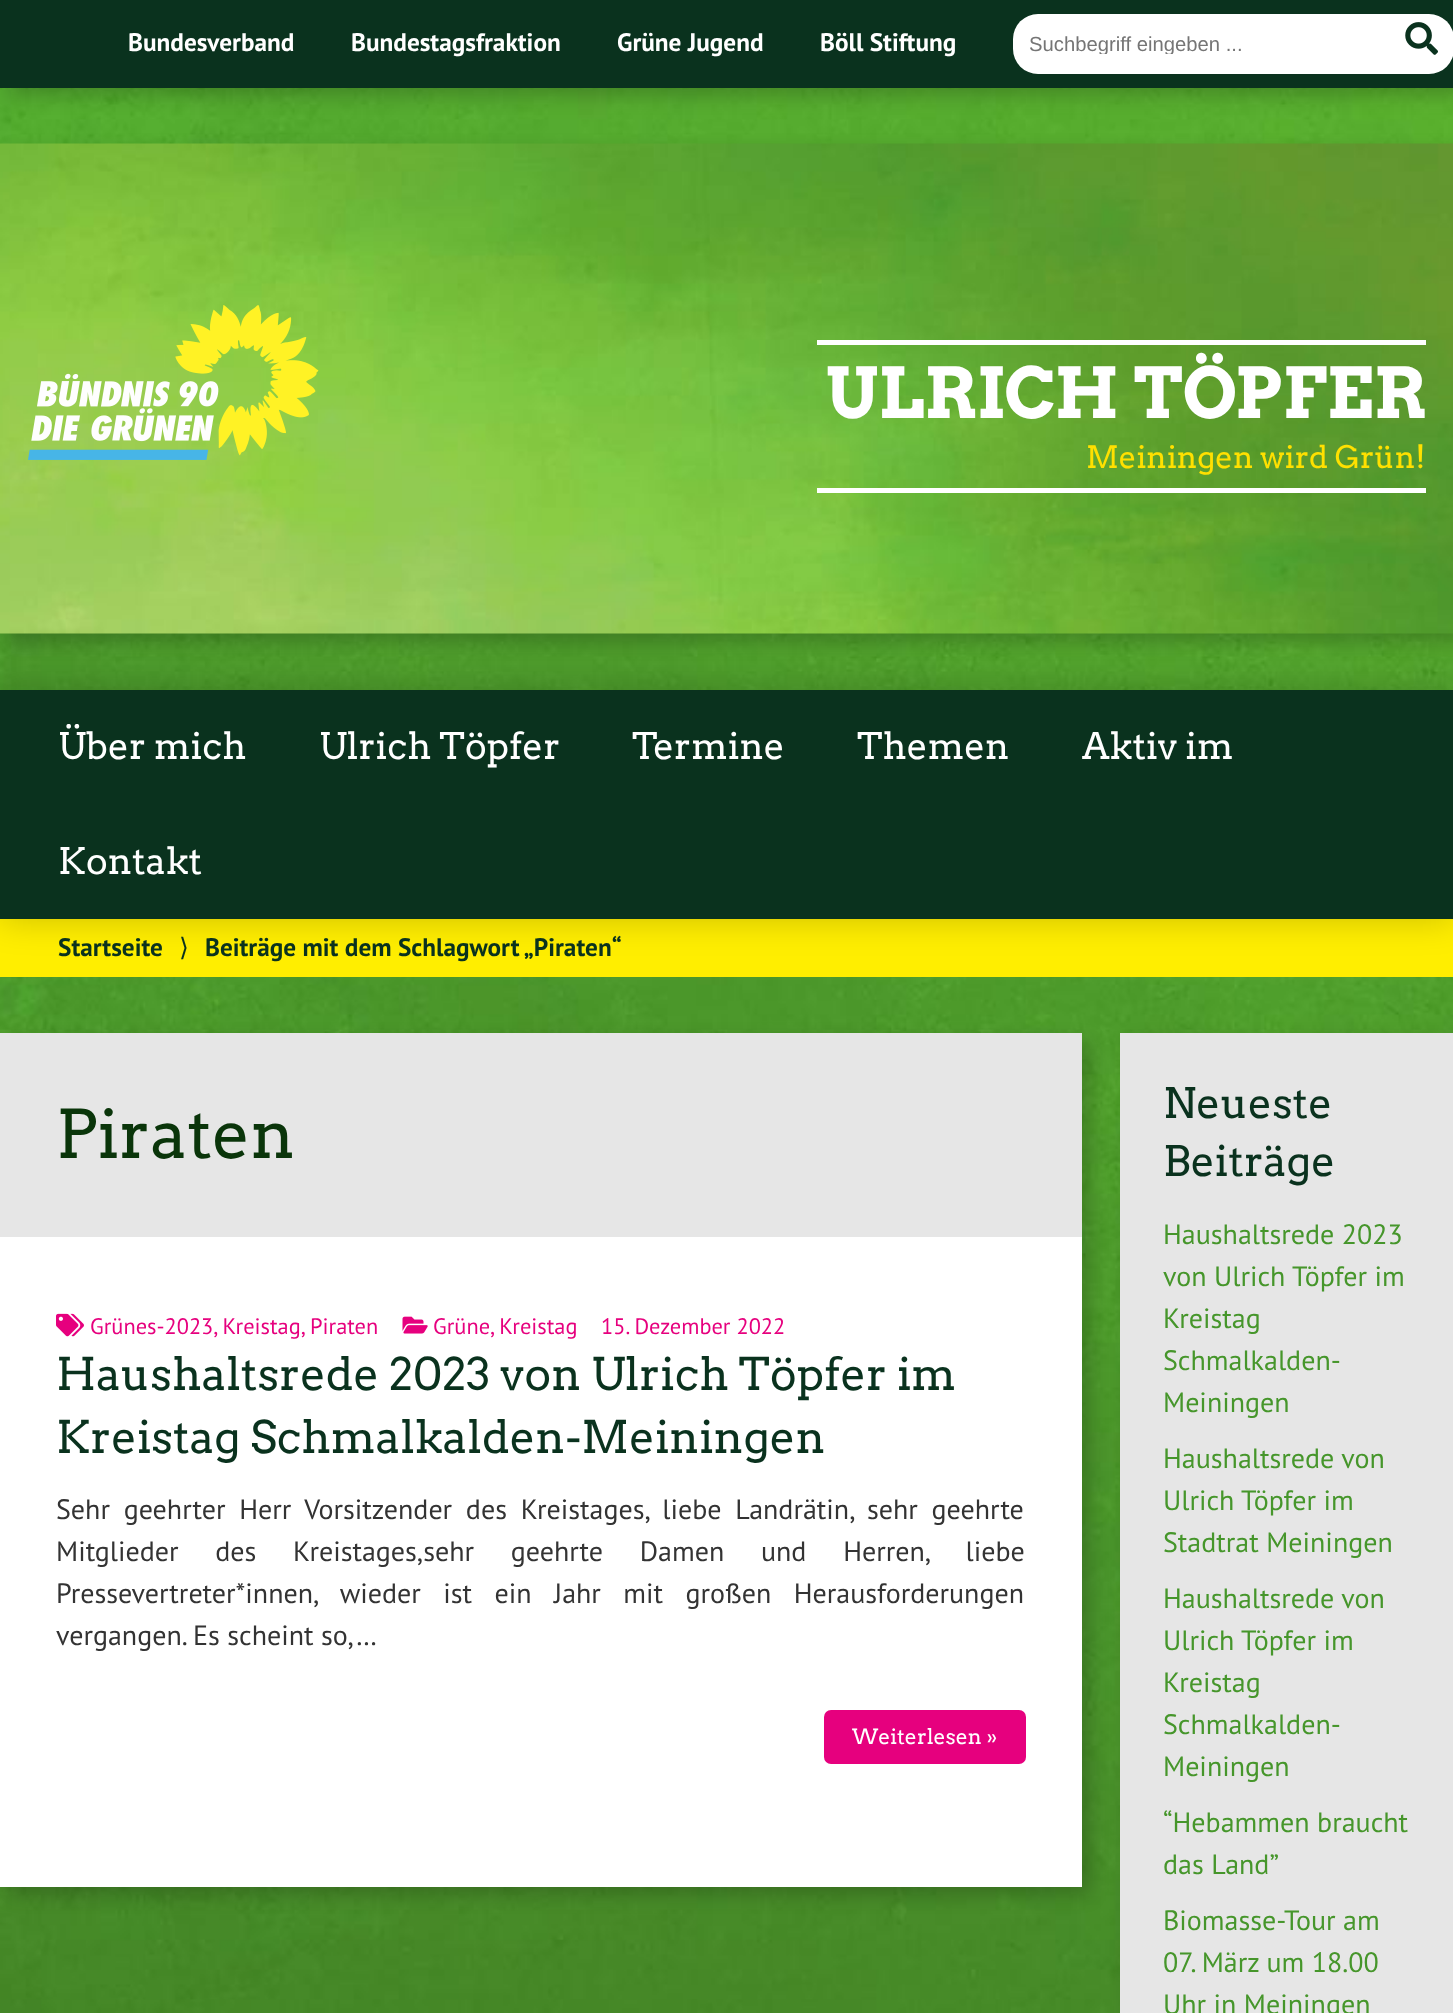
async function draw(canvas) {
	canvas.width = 1453;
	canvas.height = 2013;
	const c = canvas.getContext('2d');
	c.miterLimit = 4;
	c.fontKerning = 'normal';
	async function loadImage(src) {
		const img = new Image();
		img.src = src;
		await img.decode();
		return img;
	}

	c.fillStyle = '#fff';
	c.fillRect(0, 0, 1453, 2013);
	c.drawImage(await loadImage('img1.png'), 0, 88, 1453, 1925);
	c.fillStyle = '#00000033';
	c.filter = 'blur(9px)';
	c.beginPath();
	c.rect(9, 9, 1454, 87);
	c.fill();
	c.filter = 'none';
	c.fillStyle = '#0a321e';
	c.fillRect(0, 0, 1453, 88);
	c.font = 'bold 25.25px PT Sans';
	c.fillStyle = '#fff';
	for (const [text, x, y] of [
		['Bundesverband', 128, 51],
		['Bundestagsfraktion', 351, 51],
		['Grüne Jugend', 617, 51],
		['Böll Stiftung', 820, 51],
	]) {
		c.fillText(text, x, y);
	}
	c.beginPath();
	c.roundRect(1013, 14, 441, 60, 25);
	c.fill();
	c.save();
	c.beginPath();
	c.rect(1029, 33, 350, 21);
	c.clip();
	c.font = '20.25px Liberation Sans';
	c.fillStyle = '#757575';
	c.fillText('Suchbegriff eingeben ...', 1029, 51);
	c.restore();
	c.drawImage(await loadImage('img2.png'), 1405, 22, 33, 33);
	c.fillStyle = '#00000033';
	c.filter = 'blur(9px)';
	c.beginPath();
	c.rect(9, 152, 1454, 490);
	c.fill();
	c.filter = 'none';
	c.drawImage(await loadImage('img3.png'), 0, 143, 1453, 491);
	c.drawImage(await loadImage('img4.png'), 28, 305, 291, 155);
	c.fillStyle = '#fff';
	c.fillRect(817, 340, 609, 5);
	c.fillRect(817, 488, 609, 5);
	c.font = '70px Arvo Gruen';
	c.fillText('ULRICH TÖPFER', 826, 418);
	c.font = '30.75px Arvo';
	c.fillStyle = '#ffe000';
	c.fillText('Meiningen wird Grün!', 1086, 468);
	c.fillStyle = '#fe0';
	c.fillRect(0, 919, 1453, 58);
	c.fillStyle = '#00000033';
	c.filter = 'blur(17.5px)';
	c.beginPath();
	c.rect(0, 690, 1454, 229);
	c.fill();
	c.filter = 'none';
	c.fillStyle = '#0a321e';
	c.fillRect(0, 690, 1453, 229);
	c.font = '36.5px Arvo';
	c.fillStyle = '#fff';
	for (const [text, x, y] of [
		['Über mich', 58, 759],
		['Ulrich Töpfer', 319, 759],
		['Termine', 632, 759],
		['Themen', 857, 759],
		['Aktiv im', 1082, 759],
		['Kontakt', 58, 874],
	]) {
		c.fillText(text, x, y);
	}
	c.font = 'bold 25.25px PT Sans';
	c.fillStyle = '#0a321e';
	c.fillText('Startseite', 58, 956);
	c.font = '25.25px DejaVu Sans';
	c.fillText('⟩', 179, 956);
	c.font = 'bold 25.25px PT Sans';
	c.fillText('Beiträge mit dem Schlagwort „Piraten“', 205, 956);
	c.fillStyle = '#00000033';
	c.filter = 'blur(9px)';
	c.beginPath();
	c.rect(9, 1041, 1081, 854);
	c.fill();
	c.filter = 'none';
	c.fillStyle = '#fff';
	c.fillRect(0, 1237, 1082, 650);
	c.fillStyle = '#e6e6e6';
	c.fillRect(0, 1033, 1082, 204);
	c.font = '67px Arvo';
	c.fillStyle = '#0a350a';
	c.fillText('Piraten', 56, 1158);
	c.drawImage(await loadImage('img5.png'), 56, 1313, 28, 24);
	c.font = '22.4px PT Sans';
	c.fillStyle = '#e6007e';
	c.fillText('Grünes-2023, Kreistag, Piraten', 90, 1334);
	c.drawImage(await loadImage('img6.png'), 402, 1316, 26, 18);
	c.fillText('Grüne, Kreistag', 433, 1334);
	c.fillText('15. Dezember 2022', 601, 1334);
	c.font = '44.8px Arvo';
	c.fillStyle = '#0a321e';
	c.fillText('Haushaltsrede 2023 von Ulrich Töpfer im', 56, 1390);
	c.fillText('Kreistag Schmalkalden-Meiningen', 56, 1453);
	c.wordSpacing = '6.25px';
	c.font = '28px PT Sans';
	c.fillStyle = '#333';
	c.fillText('Sehr geehrter Herr Vorsitzender des Kreistages, liebe Landrätin, sehr geehrte', 56, 1519);
	c.wordSpacing = '29.25px';
	c.fillText('Mitglieder des Kreistages,sehr geehrte Damen und Herren, liebe', 56, 1561);
	c.wordSpacing = '15px';
	c.fillText('Pressevertreter*innen, wieder ist ein Jahr mit großen Herausforderungen', 56, 1603);
	c.wordSpacing = '0px';
	c.fillText('vergangen. Es scheint so,…', 56, 1645);
	c.fillStyle = '#e6007e';
	c.beginPath();
	c.roundRect(824, 1710, 202, 54, 7);
	c.fill();
	c.font = '21px Arvo';
	c.fillStyle = '#fff';
	c.fillText('Weiterlesen »', 852, 1744);
	c.fillStyle = '#00000033';
	c.filter = 'blur(9px)';
	c.beginPath();
	c.rect(1129, 1041, 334, 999);
	c.fill();
	c.filter = 'none';
	c.fillStyle = '#e6e6e6';
	c.fillRect(1120, 1033, 333, 980);
	c.font = '42px Arvo';
	c.fillStyle = '#0a321e';
	c.fillText('Neueste', 1163, 1118);
	c.fillText('Beiträge', 1163, 1176);
	c.font = '28px PT Sans';
	c.fillStyle = '#46962b';
	for (const [text, x, y] of [
		['Haushaltsrede 2023', 1163, 1244],
		['von Ulrich Töpfer im', 1163, 1286],
		['Kreistag', 1163, 1328],
		['Schmalkalden-', 1163, 1370],
		['Meiningen', 1163, 1412],
		['Haushaltsrede von', 1163, 1468],
		['Ulrich Töpfer im', 1163, 1510],
		['Stadtrat Meiningen', 1163, 1552],
		['Haushaltsrede von', 1163, 1608],
		['Ulrich Töpfer im', 1163, 1650],
		['Kreistag', 1163, 1692],
		['Schmalkalden-', 1163, 1734],
		['Meiningen', 1163, 1776],
		['“Hebammen braucht', 1163, 1832],
		['das Land”', 1163, 1874],
		['Biomasse-Tour am', 1163, 1930],
		['07. März um 18.00', 1163, 1972],
		['Uhr in Meiningen', 1163, 2014],
	]) {
		c.fillText(text, x, y);
	}
}

draw(document.querySelector('canvas'));
